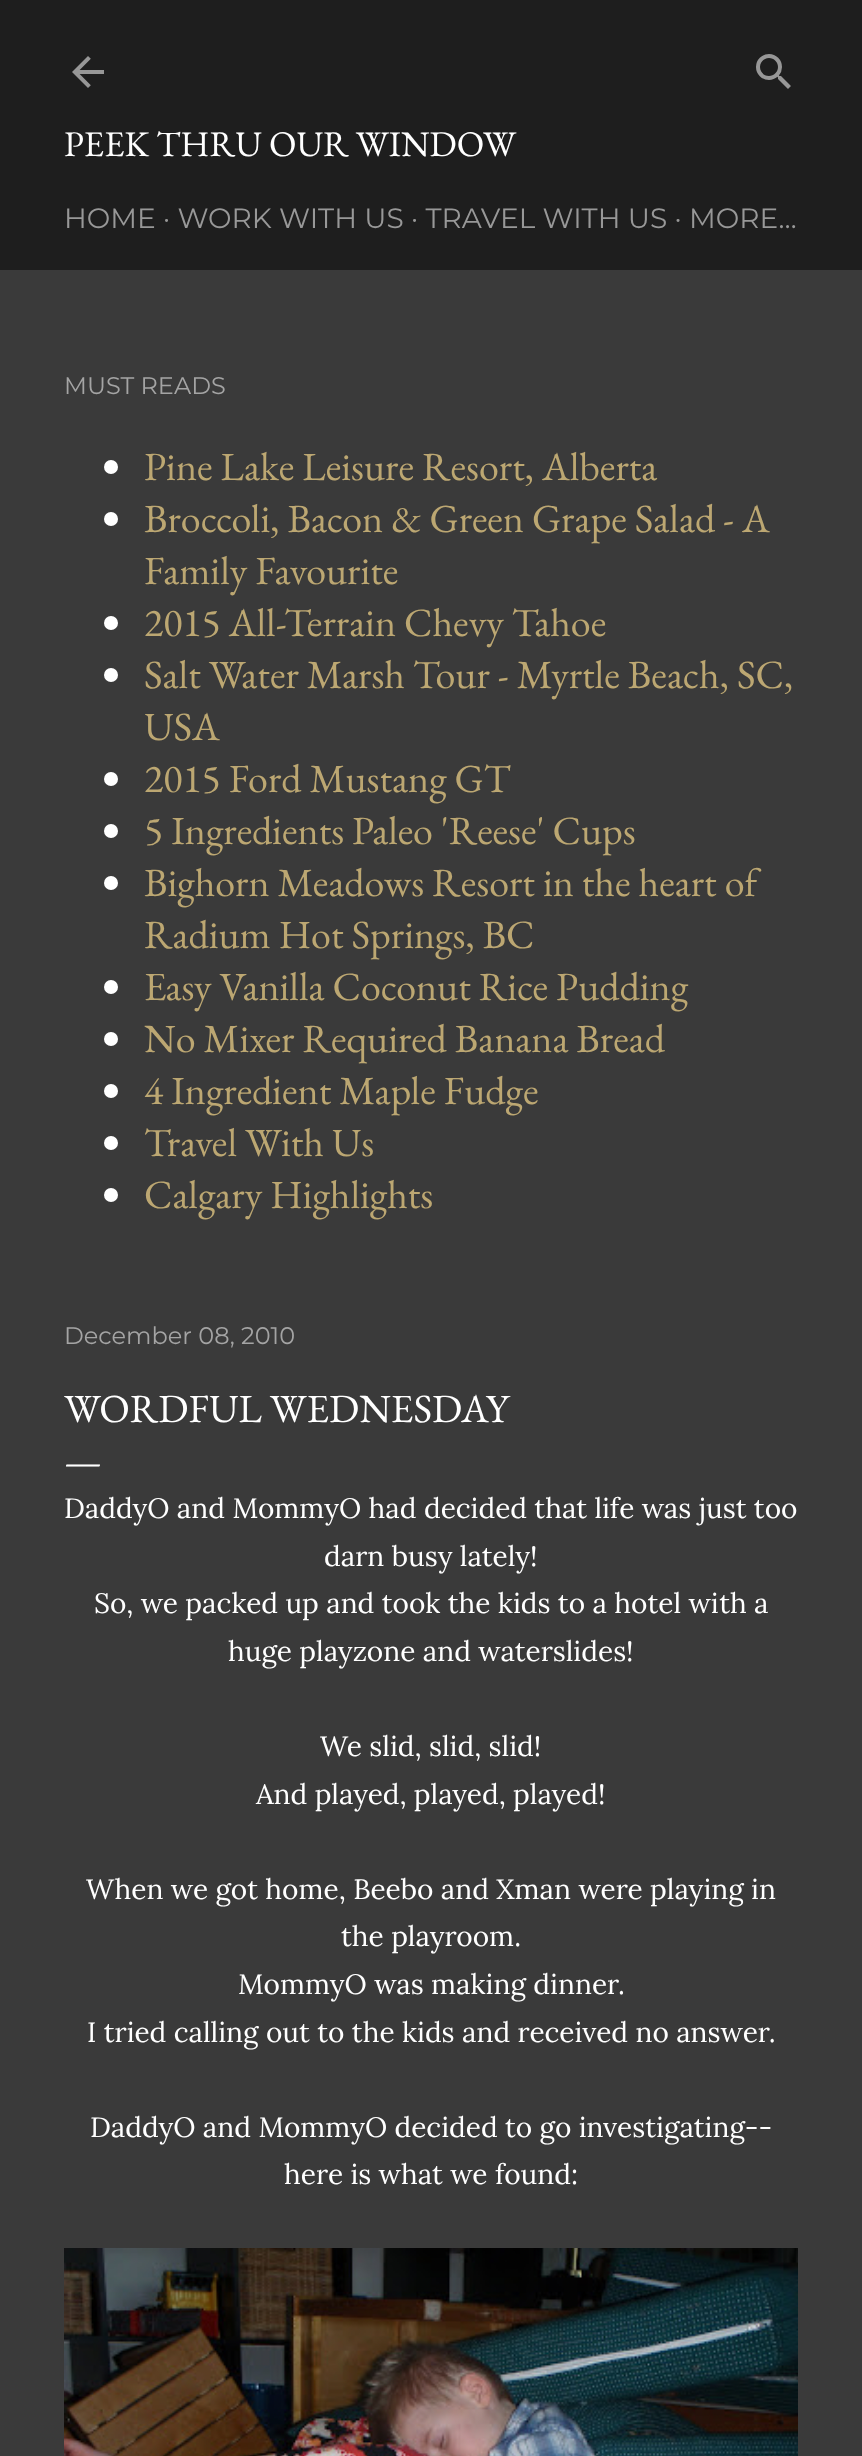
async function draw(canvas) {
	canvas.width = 862;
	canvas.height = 2456;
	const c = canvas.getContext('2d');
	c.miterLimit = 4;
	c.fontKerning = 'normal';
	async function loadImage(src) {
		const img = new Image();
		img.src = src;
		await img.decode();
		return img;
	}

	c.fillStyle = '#3a3a3a';
	c.fillRect(0, 0, 862, 2456);
	c.fillStyle = '#1e1e1e';
	c.fillRect(0, 0, 862, 270);
	c.drawImage(await loadImage('img1.png'), 72, 56, 32, 32);
	c.drawImage(await loadImage('img2.png'), 756, 54, 35, 35);
	c.font = '36px EB Garamond';
	c.fillStyle = '#fff';
	c.fillText('PEEK THRU OUR WINDOW', 64, 156);
	c.font = '28px Montserrat';
	c.fillStyle = '#989898';
	c.fillText('HOME · WORK WITH US · TRAVEL WITH US · MORE…', 64, 228);
	c.font = '24px Montserrat';
	c.fillStyle = '#a4a4a4';
	c.fillText('MUST READS', 64, 394);
	c.fillStyle = '#fff';
	c.beginPath();
	c.arc(111, 467, 7, 0, 2 * Math.PI);
	c.fill();
	c.font = '40px EB Garamond';
	c.fillStyle = '#bca772';
	c.fillText('Pine Lake Leisure Resort, Alberta', 144, 480);
	c.fillStyle = '#fff';
	c.beginPath();
	c.arc(111, 519, 7, 0, 2 * Math.PI);
	c.fill();
	c.fillStyle = '#bca772';
	c.fillText('Broccoli, Bacon & Green Grape Salad - A', 144, 532);
	c.fillText('Family Favourite', 144, 584);
	c.fillStyle = '#fff';
	c.beginPath();
	c.arc(111, 623, 7, 0, 2 * Math.PI);
	c.fill();
	c.fillStyle = '#bca772';
	c.fillText('2015 All-Terrain Chevy Tahoe', 144, 636);
	c.fillStyle = '#fff';
	c.beginPath();
	c.arc(111, 675, 7, 0, 2 * Math.PI);
	c.fill();
	c.fillStyle = '#bca772';
	c.fillText('Salt Water Marsh Tour - Myrtle Beach, SC,', 144, 688);
	c.fillText('USA', 144, 740);
	c.fillStyle = '#fff';
	c.beginPath();
	c.arc(111, 779, 7, 0, 2 * Math.PI);
	c.fill();
	c.fillStyle = '#bca772';
	c.fillText('2015 Ford Mustang GT', 144, 792);
	c.fillStyle = '#fff';
	c.beginPath();
	c.arc(111, 831, 7, 0, 2 * Math.PI);
	c.fill();
	c.fillStyle = '#bca772';
	c.fillText('5 Ingredients Paleo \'Reese\' Cups', 144, 844);
	c.fillStyle = '#fff';
	c.beginPath();
	c.arc(111, 883, 7, 0, 2 * Math.PI);
	c.fill();
	c.fillStyle = '#bca772';
	c.fillText('Bighorn Meadows Resort in the heart of', 144, 896);
	c.fillText('Radium Hot Springs, BC', 144, 948);
	c.fillStyle = '#fff';
	c.beginPath();
	c.arc(111, 987, 7, 0, 2 * Math.PI);
	c.fill();
	c.fillStyle = '#bca772';
	c.fillText('Easy Vanilla Coconut Rice Pudding', 144, 1000);
	c.fillStyle = '#fff';
	c.beginPath();
	c.arc(111, 1039, 7, 0, 2 * Math.PI);
	c.fill();
	c.fillStyle = '#bca772';
	c.fillText('No Mixer Required Banana Bread', 144, 1052);
	c.fillStyle = '#fff';
	c.beginPath();
	c.arc(111, 1091, 7, 0, 2 * Math.PI);
	c.fill();
	c.fillStyle = '#bca772';
	c.fillText('4 Ingredient Maple Fudge', 144, 1104);
	c.fillStyle = '#fff';
	c.beginPath();
	c.arc(111, 1143, 7, 0, 2 * Math.PI);
	c.fill();
	c.fillStyle = '#bca772';
	c.fillText('Travel With Us', 144, 1156);
	c.fillStyle = '#fff';
	c.beginPath();
	c.arc(111, 1195, 7, 0, 2 * Math.PI);
	c.fill();
	c.fillStyle = '#bca772';
	c.fillText('Calgary Highlights', 144, 1208);
	c.font = '24px Montserrat';
	c.fillStyle = '#a4a4a4';
	c.fillText('December 08, 2010', 64, 1344);
	c.font = '40px EB Garamond';
	c.fillStyle = '#fff';
	c.fillText('WORDFUL WEDNESDAY', 64, 1422);
	c.fillText('—', 64, 1474);
	c.font = '28px Lora';
	for (const [text, x, y] of [
		['DaddyO and MommyO had decided that life was just too', 64, 1518],
		['darn busy lately!', 324, 1566],
		['So, we packed up and took the kids to a hotel with a', 94, 1613],
		['huge playzone and waterslides!', 228, 1661],
		['We slid, slid, slid!', 320, 1756],
		['And played, played, played!', 256, 1804],
		['When we got home, Beebo and Xman were playing in', 86, 1899],
		['the playroom.', 341, 1946],
		['MommyO was making dinner.', 238, 1994],
		['I tried calling out to the kids and received no answer.', 87, 2042],
		['DaddyO and MommyO decided to go investigating--', 90, 2137],
		['here is what we found:', 284, 2184],
	]) {
		c.fillText(text, x, y);
	}
	c.drawImage(await loadImage('img3.png'), 64, 2248, 734, 208);
}

draw(document.querySelector('canvas'));
